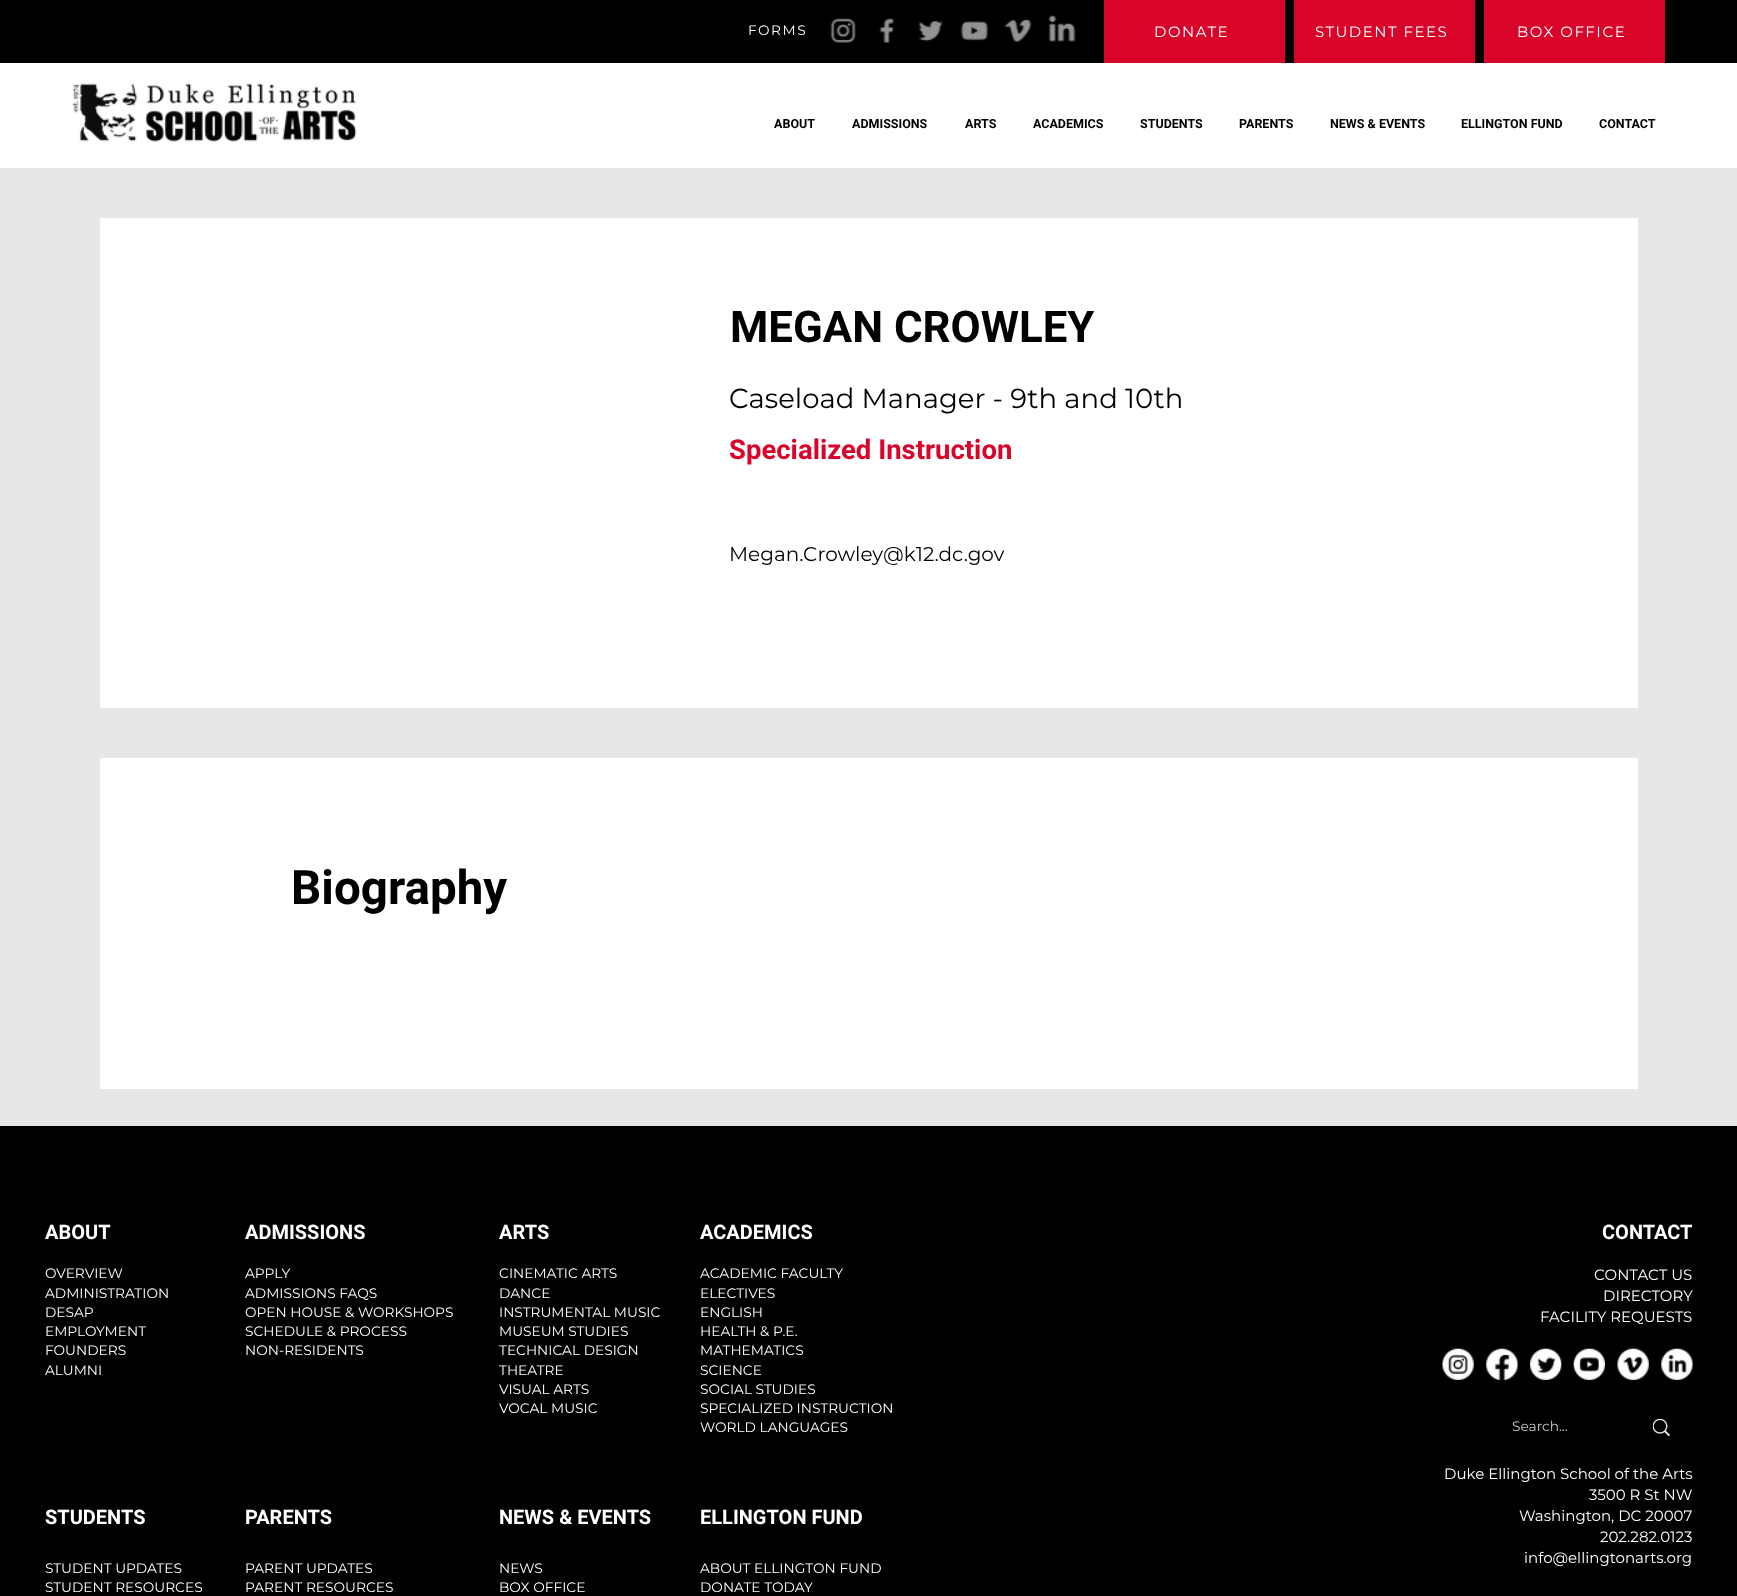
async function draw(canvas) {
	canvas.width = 1737;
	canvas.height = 1596;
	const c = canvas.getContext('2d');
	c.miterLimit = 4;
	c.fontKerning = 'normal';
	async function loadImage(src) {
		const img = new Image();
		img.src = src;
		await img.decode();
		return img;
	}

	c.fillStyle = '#e8e6e6';
	c.fillRect(0, 0, 1737, 1596);
	c.fillStyle = '#000';
	c.fillRect(0, 0, 1737, 63);
	c.letterSpacing = '1.5px';
	c.font = '13.75px Montserrat';
	c.fillStyle = '#fff';
	c.fillText('FORMS', 748, 35);
	c.drawImage(await loadImage('img1.png'), 830, 18, 26, 25);
	c.drawImage(await loadImage('img2.png'), 879, 18, 16, 25);
	c.drawImage(await loadImage('img3.png'), 918, 20, 25, 22);
	c.drawImage(await loadImage('img4.png'), 960, 21, 29, 20);
	c.drawImage(await loadImage('img5.png'), 1004, 19, 28, 24);
	c.drawImage(await loadImage('img6.png'), 1048, 15, 28, 27);
	c.fillStyle = '#d90429';
	c.fillRect(1104, 0, 181, 63);
	c.font = '15px Montserrat';
	c.fillStyle = '#fff';
	c.fillText('DONATE', 1154, 37);
	c.fillStyle = '#d90429';
	c.fillRect(1294, 0, 181, 63);
	c.fillStyle = '#fff';
	c.fillText('STUDENT FEES', 1315, 37);
	c.fillStyle = '#d90429';
	c.fillRect(1484, 0, 181, 63);
	c.fillStyle = '#fff';
	c.fillText('BOX OFFICE', 1517, 37);
	c.fillRect(0, 63, 1737, 105);
	c.drawImage(await loadImage('img7.png'), 72, 83, 285, 59);
	c.letterSpacing = '0px';
	c.font = 'bold 12.5px Roboto';
	c.fillStyle = '#000';
	for (const [text, x, y] of [
		['ABOUT', 774, 128],
		['ADMISSIONS', 852, 128],
		['ARTS', 965, 128],
		['ACADEMICS', 1033, 128],
		['STUDENTS', 1140, 128],
		['PARENTS', 1239, 128],
		['NEWS & EVENTS', 1330, 128],
		['ELLINGTON FUND', 1461, 128],
		['CONTACT', 1599, 128],
	]) {
		c.fillText(text, x, y);
	}
	c.fillStyle = '#fff';
	c.fillRect(100, 218, 1538, 490);
	c.font = 'bold 43.75px Roboto';
	c.fillStyle = '#000';
	c.fillText('MEGAN CROWLEY', 730, 342);
	c.font = '27.5px Montserrat';
	c.fillText('Caseload Manager - 9th and 10th', 729, 408);
	c.font = 'bold 27.5px Roboto';
	c.fillStyle = '#d90429';
	c.fillText('Specialized Instruction', 729, 459);
	c.font = '20px Montserrat';
	c.fillStyle = '#000';
	c.fillText('Megan.Crowley@k12.dc.gov', 729, 561);
	c.fillStyle = '#fff';
	c.fillRect(100, 758, 1538, 331);
	c.font = 'bold 47.5px Roboto';
	c.fillStyle = '#000';
	c.fillText('Biography', 291, 904);
	c.fillRect(0, 1126, 1737, 470);
	c.font = 'bold 20px Roboto';
	c.fillStyle = '#fff';
	for (const [text, x, y] of [
		['ABOUT', 45, 1239],
		['ADMISSIONS', 245, 1239],
		['ARTS', 499, 1239],
		['ACADEMICS', 700, 1239],
	]) {
		c.fillText(text, x, y);
	}
	c.font = '13.75px Montserrat';
	for (const [text, x, y] of [
		['OVERVIEW', 45, 1278],
		['ADMINISTRATION', 45, 1298],
		['DESAP', 45, 1317],
		['EMPLOYMENT', 45, 1336],
		['FOUNDERS', 45, 1355],
		['ALUMNI', 45, 1375],
		['APPLY', 245, 1278],
		['ADMISSIONS FAQS', 245, 1298],
		['OPEN HOUSE & WORKSHOPS', 245, 1317],
		['SCHEDULE & PROCESS', 245, 1336],
		['NON-RESIDENTS', 245, 1355],
		['CINEMATIC ARTS', 499, 1278],
		['DANCE', 499, 1298],
		['INSTRUMENTAL MUSIC', 499, 1317],
		['MUSEUM STUDIES', 499, 1336],
		['TECHNICAL DESIGN', 499, 1355],
		['THEATRE', 499, 1375],
		['VISUAL ARTS', 499, 1394],
		['VOCAL MUSIC', 499, 1413],
		['ACADEMIC FACULTY', 700, 1278],
		['ELECTIVES', 700, 1298],
		['ENGLISH', 700, 1317],
		['HEALTH & P.E.', 700, 1336],
		['MATHEMATICS', 700, 1355],
		['SCIENCE', 700, 1375],
		['SOCIAL STUDIES', 700, 1394],
		['SPECIALIZED INSTRUCTION', 700, 1413],
		['WORLD LANGUAGES', 700, 1432],
	]) {
		c.fillText(text, x, y);
	}
	c.font = 'bold 20px Roboto';
	for (const [text, x, y] of [
		['STUDENTS', 45, 1524],
		['PARENTS', 245, 1524],
		['NEWS & EVENTS', 499, 1524],
		['ELLINGTON FUND', 700, 1524],
	]) {
		c.fillText(text, x, y);
	}
	c.font = '13.75px Montserrat';
	for (const [text, x, y] of [
		['STUDENT UPDATES', 45, 1573],
		['STUDENT RESOURCES', 45, 1592],
		['PARENT UPDATES', 245, 1573],
		['PARENT RESOURCES', 245, 1592],
		['NEWS', 499, 1573],
		['BOX OFFICE', 499, 1592],
		['ABOUT ELLINGTON FUND', 700, 1573],
		['DONATE TODAY', 700, 1592],
	]) {
		c.fillText(text, x, y);
	}
	c.font = 'bold 20px Roboto';
	c.fillText('CONTACT', 1602, 1239);
	c.font = '15px Montserrat';
	for (const [text, x, y] of [
		['CONTACT US', 1594, 1280],
		['DIRECTORY', 1603, 1301],
		['FACILITY REQUESTS', 1540, 1322],
	]) {
		c.fillText(text, x, y);
	}
	c.drawImage(await loadImage('img8.png'), 1442, 1348, 32, 32);
	c.drawImage(await loadImage('img9.png'), 1486, 1348, 32, 32);
	c.drawImage(await loadImage('img10.png'), 1530, 1348, 32, 32);
	c.drawImage(await loadImage('img11.png'), 1573, 1348, 32, 32);
	c.drawImage(await loadImage('img12.png'), 1617, 1348, 32, 32);
	c.drawImage(await loadImage('img13.png'), 1661, 1348, 32, 32);
	c.font = '13.75px Montserrat';
	c.fillStyle = '#c7c7c7';
	c.fillText('Search...', 1512, 1431);
	c.drawImage(await loadImage('img14.png'), 1653, 1419, 17, 17);
	c.font = '15px Montserrat';
	c.fillStyle = '#fff';
	for (const [text, x, y] of [
		['Duke Ellington School of the Arts', 1444, 1479],
		['3500 R St NW', 1589, 1500],
		['Washington, DC 20007', 1519, 1521],
		['202.282.0123', 1600, 1542],
		['info@ellingtonarts.org', 1524, 1563],
	]) {
		c.fillText(text, x, y);
	}
}

draw(document.querySelector('canvas'));
